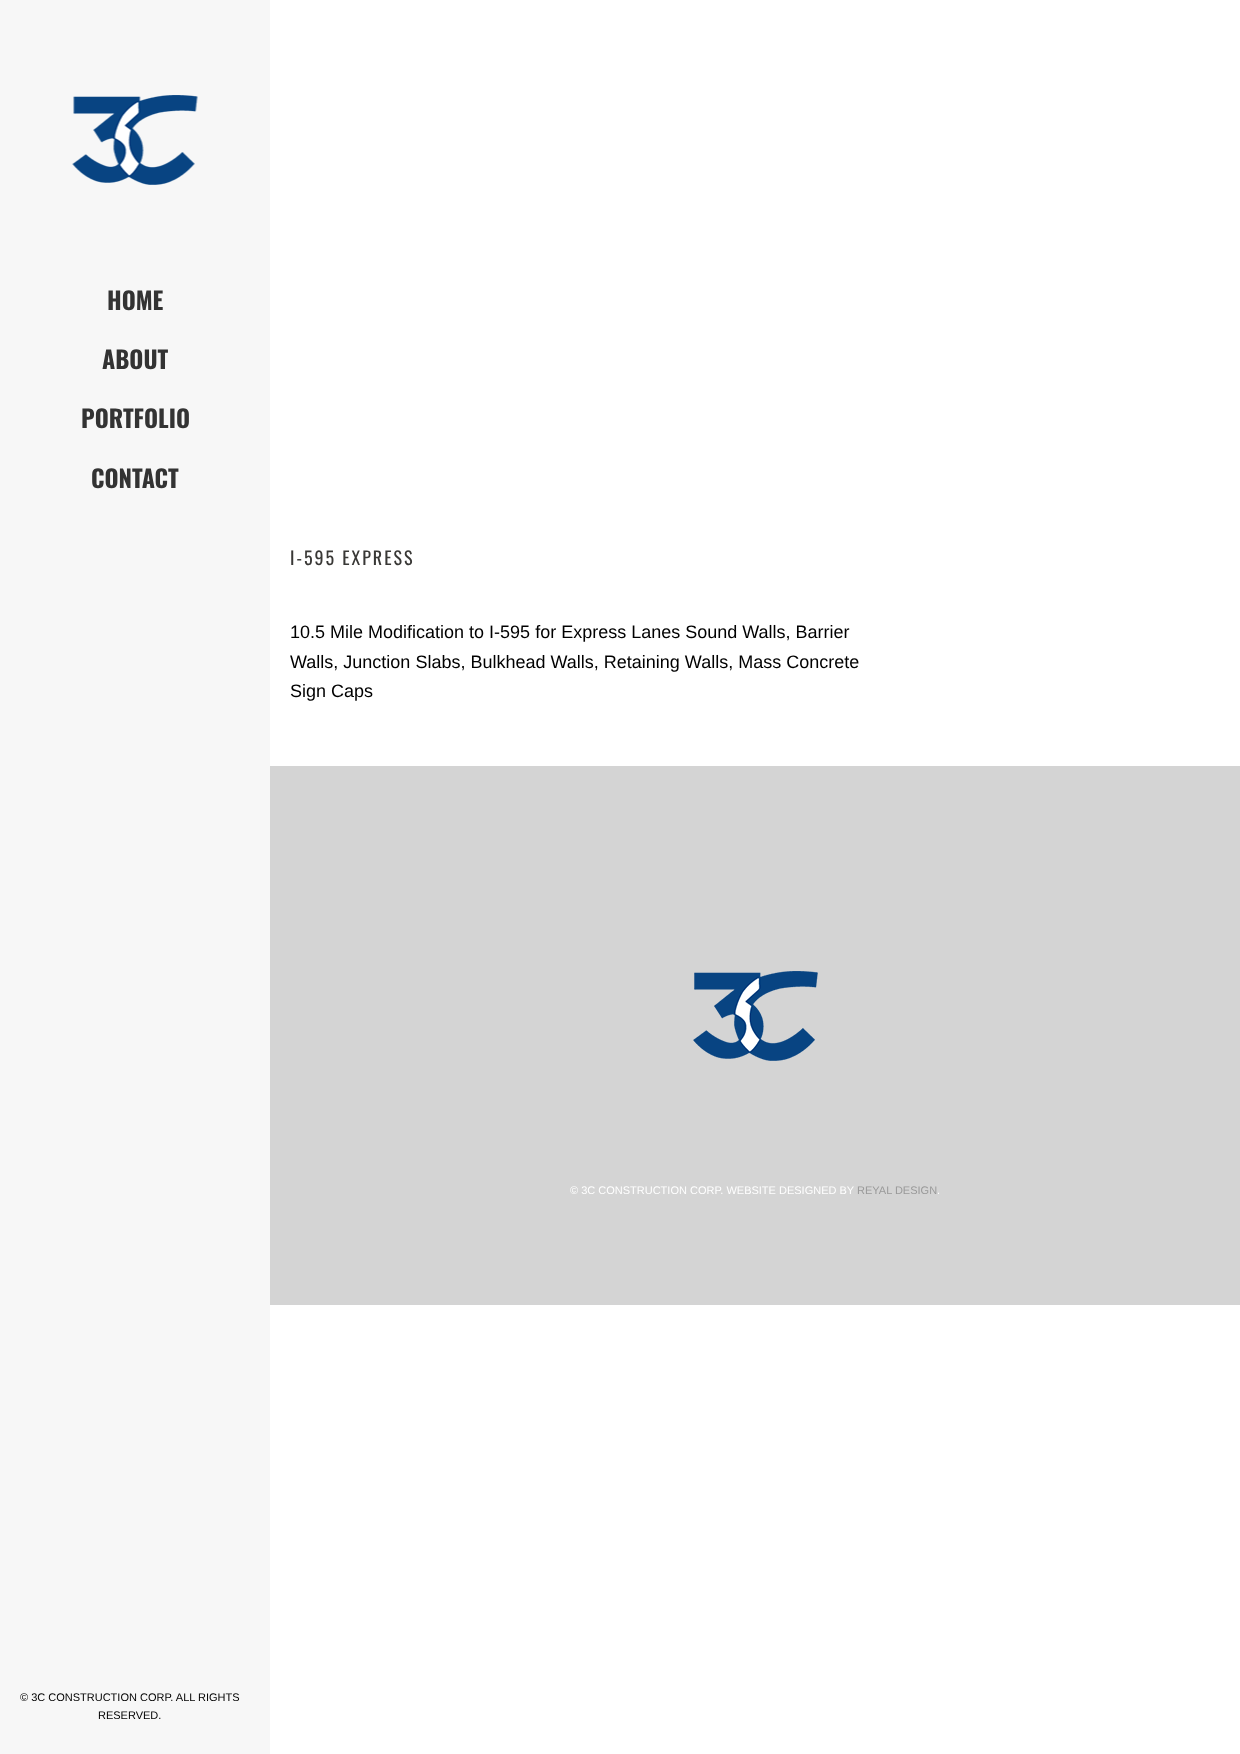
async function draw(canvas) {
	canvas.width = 1240;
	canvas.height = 1754;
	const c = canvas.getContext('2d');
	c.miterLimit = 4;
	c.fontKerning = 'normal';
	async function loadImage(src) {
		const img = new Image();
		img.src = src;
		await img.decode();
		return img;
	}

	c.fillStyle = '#fff';
	c.fillRect(0, 0, 1240, 1754);
	c.fillStyle = '#f7f7f7';
	c.fillRect(0, 0, 270, 1754);
	c.drawImage(await loadImage('img1.png'), 72, 95, 126, 90);
	c.font = 'bold 24px Oswald';
	c.fillStyle = '#333';
	for (const [text, x, y] of [
		['HOME', 107, 310],
		['ABOUT', 102, 369],
		['PORTFOLIO', 81, 428],
		['CONTACT', 91, 488],
	]) {
		c.fillText(text, x, y);
	}
	c.font = '11px Liberation Sans';
	c.fillStyle = '#000';
	c.fillText('© 3C CONSTRUCTION CORP. ALL RIGHTS', 20, 1701);
	c.fillText('RESERVED.', 98, 1719);
	c.letterSpacing = '2px';
	c.font = '18px Oswald';
	c.fillStyle = '#393836';
	c.fillText('I-595 EXPRESS', 290, 565);
	c.letterSpacing = '0px';
	c.font = '18px Liberation Sans';
	c.fillStyle = '#000';
	for (const [text, x, y] of [
		['10.5 Mile Modification to I-595 for Express Lanes Sound Walls, Barrier', 290, 638],
		['Walls, Junction Slabs, Bulkhead Walls, Retaining Walls, Mass Concrete', 290, 668],
		['Sign Caps', 290, 697],
	]) {
		c.fillText(text, x, y);
	}
	c.fillStyle = '#d4d4d4';
	c.fillRect(270, 766, 970, 539);
	c.drawImage(await loadImage('img2.png'), 693, 971, 125, 90);
	c.font = '11px Liberation Sans';
	c.fillStyle = '#fff';
	c.fillText('© 3C CONSTRUCTION CORP. WEBSITE DESIGNED BY', 570, 1194);
	c.fillStyle = '#999';
	c.fillText('REYAL DESIGN', 857, 1194);
	c.fillStyle = '#fff';
	c.fillText('.', 937, 1194);
}

draw(document.querySelector('canvas'));
